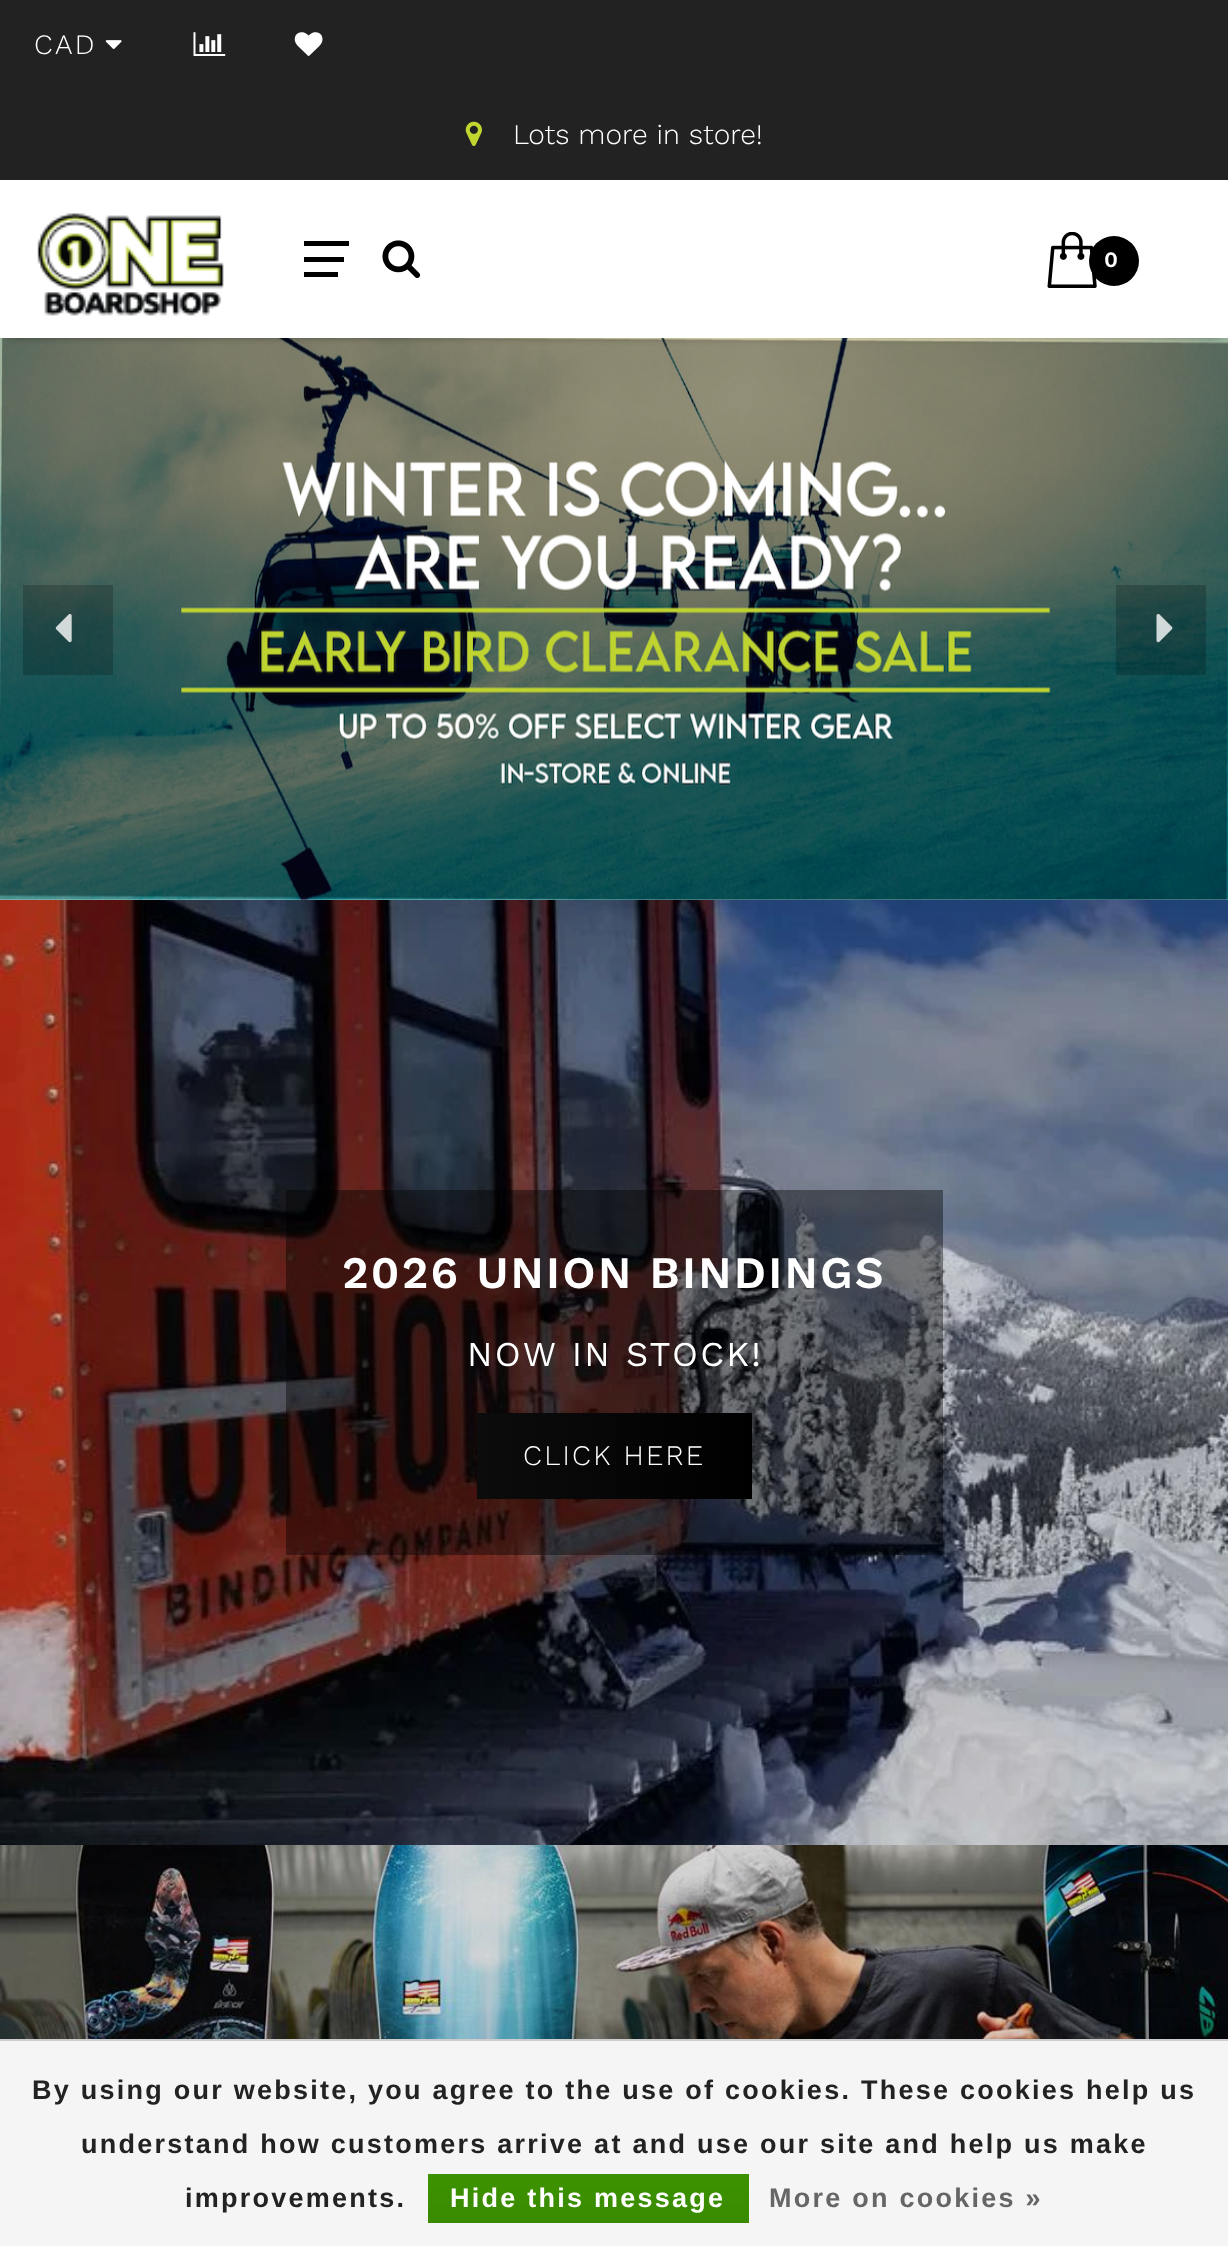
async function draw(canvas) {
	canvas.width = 1228;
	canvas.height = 2246;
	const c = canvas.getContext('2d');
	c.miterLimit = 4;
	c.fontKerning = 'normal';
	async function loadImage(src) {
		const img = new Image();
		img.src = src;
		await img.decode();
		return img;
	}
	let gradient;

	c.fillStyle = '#fff';
	c.fillRect(0, 0, 1228, 2246);
	c.fillStyle = '#222';
	c.fillRect(0, 0, 1228, 180);
	c.letterSpacing = '2.25px';
	c.font = '300 28px Work Sans';
	c.fillStyle = '#fff';
	c.fillText('CAD', 34, 54);
	c.drawImage(await loadImage('img1.png'), 105, 40, 17, 9);
	c.drawImage(await loadImage('img2.png'), 193, 32, 33, 24);
	c.drawImage(await loadImage('img3.png'), 294, 32, 29, 24);
	c.drawImage(await loadImage('img4.png'), 465, 121, 17, 25);
	c.letterSpacing = '0px';
	c.font = '300 28.25px Work Sans';
	c.fillText('Lots more in store!', 513, 144);
	c.drawImage(await loadImage('img8.png'), 0, 338, 1228, 562);
	c.fillStyle = '#000';
	c.filter = 'blur(5.5px)';
	c.beginPath();
	c.rect(9, 194, 1211, 139);
	c.fill();
	c.filter = 'none';
	c.fillStyle = '#fff';
	c.fillRect(0, 181, 1228, 157);
	c.drawImage(await loadImage('img5.png'), 37, 213, 187, 103);
	for (const [x, y, w, h, color] of [
		[304, 241, 45, 5, '#000'],
		[304, 257, 40, 5, '#000'],
		[304, 272, 34, 5, '#000'],
	]) {
		c.fillStyle = color;
		c.fillRect(x, y, w, h);
	}
	c.drawImage(await loadImage('img6.png'), 382, 240, 39, 38);
	c.drawImage(await loadImage('img7.png'), 1047, 232, 50, 56);
	c.beginPath();
	c.arc(1114, 261, 25, 0, 2 * Math.PI);
	c.fill();
	c.letterSpacing = '2.25px';
	c.font = '600 22px Work Sans';
	c.fillStyle = '#fff';
	c.fillText('0', 1104, 267);
	c.fillStyle = '#00000033';
	c.fillRect(23, 585, 90, 90);
	c.drawImage(await loadImage('img9.png'), 55, 614, 17, 29);
	c.fillRect(1116, 585, 90, 90);
	c.drawImage(await loadImage('img10.png'), 1156, 613, 17, 30);
	c.drawImage(await loadImage('img11.png'), 0, 900, 1228, 945);
	c.fillStyle = '#00000066';
	c.fillRect(286, 1190, 657, 365);
	c.font = '600 45px Work Sans';
	c.fillStyle = '#fff';
	c.fillText('2026 UNION BINDINGS', 342, 1288);
	c.font = '34.75px Work Sans';
	c.fillText('NOW IN STOCK!', 467, 1366);
	gradient = c.createLinearGradient(477, 1456, 752, 1456);
	gradient.addColorStop(0, '#0c0c0c');
	gradient.addColorStop(1, '#000');
	c.fillStyle = gradient;
	c.fillRect(477, 1413, 275, 86);
	c.font = '300 28.25px Work Sans';
	c.fillStyle = '#fff';
	c.fillText('CLICK HERE', 523, 1465);
	c.drawImage(await loadImage('img12.png'), 0, 1845, 1228, 194);
	c.fillStyle = '#f5f5f5';
	c.fillRect(0, 2041, 1228, 205);
	c.fillStyle = '#ccc';
	c.fillRect(0, 2039, 1228, 2);
	c.font = 'bold 27px Liberation Sans';
	c.fillStyle = '#222';
	for (const [text, x, y] of [
		['By using our website, you agree to the use of cookies. These cookies help us', 32, 2099],
		['understand how customers arrive at and use our site and help us make', 81, 2153],
		['improvements.', 185, 2207],
	]) {
		c.fillText(text, x, y);
	}
	gradient = c.createLinearGradient(588, 2174, 588, 2223);
	gradient.addColorStop(0, '#3c9300');
	gradient.addColorStop(1, '#398a00');
	c.fillStyle = gradient;
	c.fillRect(428, 2174, 321, 49);
	c.fillStyle = '#fff';
	c.fillText('Hide this message', 450, 2207);
	c.fillStyle = '#666';
	c.fillText('More on cookies »', 769, 2207);
}

draw(document.querySelector('canvas'));
